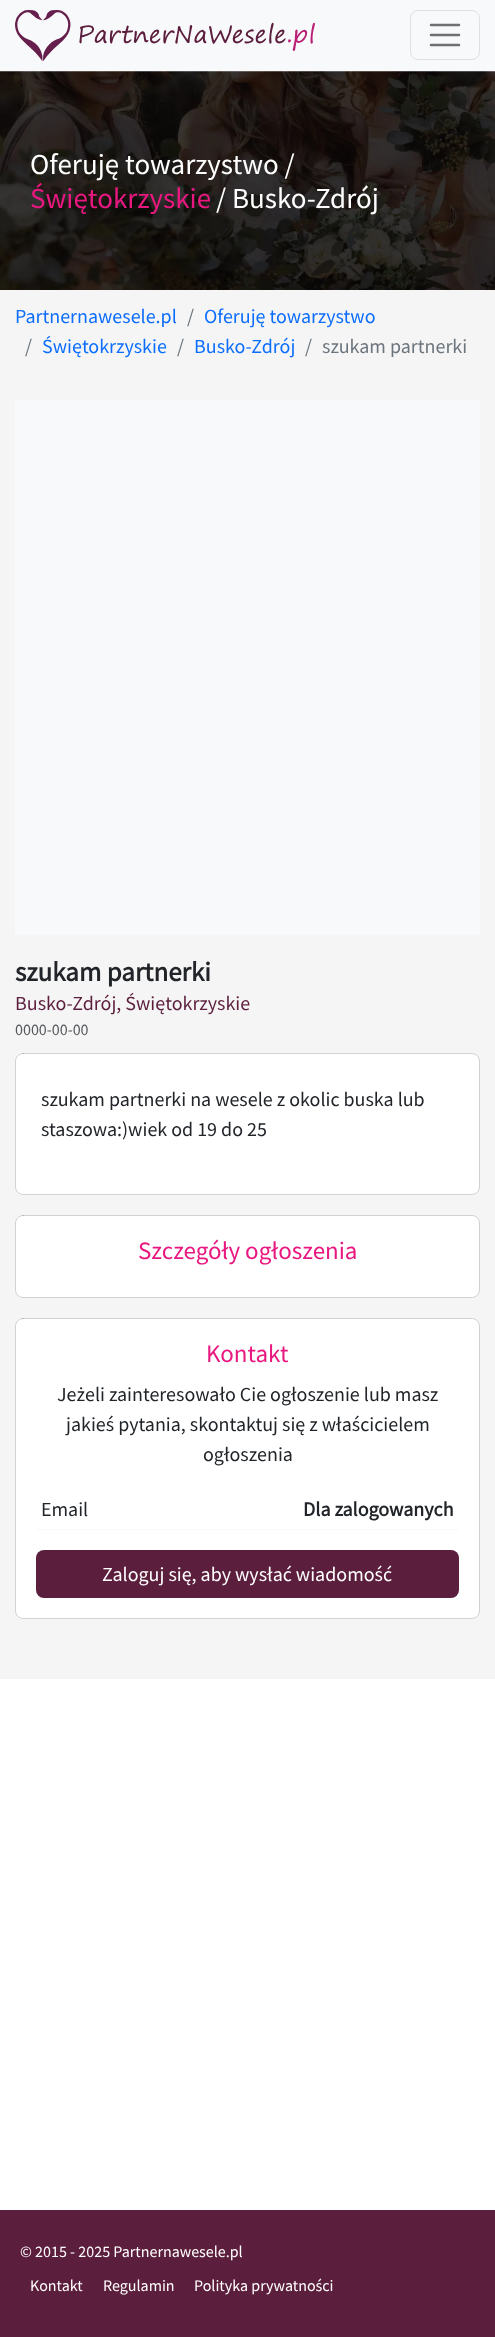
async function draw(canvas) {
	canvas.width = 495;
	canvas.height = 2337;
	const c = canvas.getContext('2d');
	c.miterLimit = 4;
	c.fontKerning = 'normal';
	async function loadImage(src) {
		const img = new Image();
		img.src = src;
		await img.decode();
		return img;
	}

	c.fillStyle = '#fff';
	c.fillRect(0, 0, 495, 2337);
	c.fillStyle = '#f8f9fa';
	c.fillRect(0, 0, 495, 71);
	c.drawImage(await loadImage('img1.png'), 15, 10, 300, 51);
	c.beginPath();
	c.roundRect(410.5, 10.5, 69, 49, 7.5);
	c.strokeStyle = '#dfe0e1';
	c.stroke();
	c.beginPath();
	c.moveTo(431, 25);
	c.lineTo(459, 25);
	c.moveTo(431, 35);
	c.lineTo(459, 35);
	c.moveTo(431, 45);
	c.lineTo(459, 45);
	c.strokeStyle = '#707071';
	c.lineWidth = 2.5;
	c.lineCap = 'round';
	c.stroke();
	c.drawImage(await loadImage('img2.png'), 0, 71, 495, 219);
	c.font = '29px Source Sans Pro';
	c.fillStyle = '#fff';
	c.fillText('Oferuję towarzystwo /', 30, 174);
	c.fillStyle = '#e91881';
	c.fillText('Świętokrzyskie', 30, 208);
	c.fillStyle = '#fff';
	c.fillText('/ Busko-Zdrój', 216, 208);
	c.fillStyle = '#f5f5f5';
	c.fillRect(0, 290, 495, 1389);
	c.font = '20px Source Sans Pro';
	c.fillStyle = '#0d6efd';
	c.fillText('Partnernawesele.pl', 15, 323);
	c.fillStyle = '#6c757d';
	c.fillText('/', 187, 323);
	c.fillStyle = '#0d6efd';
	c.fillText('Oferuję towarzystwo', 204, 323);
	c.fillStyle = '#6c757d';
	c.fillText('/', 25, 353);
	c.fillStyle = '#0d6efd';
	c.fillText('Świętokrzyskie', 42, 353);
	c.fillStyle = '#6c757d';
	c.fillText('/', 177, 353);
	c.fillStyle = '#0d6efd';
	c.fillText('Busko-Zdrój', 194, 353);
	c.fillStyle = '#6c757d';
	c.fillText('/', 305, 353);
	c.fillText('szukam partnerki', 322, 353);
	c.fillStyle = '#f8f9fa';
	c.fillRect(15, 400, 465, 535);
	c.font = 'bold 27px Source Sans Pro';
	c.fillStyle = '#212529';
	c.fillText('szukam partnerki', 15, 981);
	c.font = '20px Source Sans Pro';
	c.fillStyle = '#5c1e3d';
	c.fillText('Busko-Zdrój, Świętokrzyskie', 15, 1010);
	c.font = '16px Source Sans Pro';
	c.fillStyle = '#56595c';
	c.fillText('0000-00-00', 15, 1035);
	c.fillStyle = '#fff';
	c.beginPath();
	c.roundRect(15, 1053, 465, 142, 8);
	c.fill();
	c.beginPath();
	c.roundRect(15.5, 1053.5, 464, 141, 7.5);
	c.strokeStyle = '#0000002e';
	c.lineWidth = 1;
	c.stroke();
	c.font = '20px Source Sans Pro';
	c.fillStyle = '#212529';
	c.fillText('szukam partnerki na wesele z okolic buska lub', 41, 1106);
	c.fillText('staszowa:)wiek od 19 do 25', 41, 1136);
	c.fillStyle = '#fff';
	c.beginPath();
	c.roundRect(15, 1215, 465, 83, 8);
	c.fill();
	c.beginPath();
	c.roundRect(15.5, 1215.5, 464, 82, 7.5);
	c.stroke();
	c.font = '25px Source Sans Pro';
	c.fillStyle = '#e91881';
	c.fillText('Szczegóły ogłoszenia', 138, 1259);
	c.fillStyle = '#fff';
	c.beginPath();
	c.roundRect(15, 1318, 465, 301, 8);
	c.fill();
	c.beginPath();
	c.roundRect(15.5, 1318.5, 464, 300, 7.5);
	c.stroke();
	c.fillStyle = '#e91881';
	c.fillText('Kontakt', 206, 1362);
	c.font = '20px Source Sans Pro';
	c.fillStyle = '#212529';
	for (const [text, x, y] of [
		['Jeżeli zainteresowało Cie ogłoszenie lub masz', 57, 1401],
		['jakieś pytania, skontaktuj się z właścicielem', 66, 1431],
		['ogłoszenia', 203, 1461],
	]) {
		c.fillText(text, x, y);
	}
	c.fillStyle = '#f8f9fa';
	c.fillRect(36, 1529, 423, 1);
	c.fillStyle = '#212529';
	c.fillText('Email', 41, 1516);
	c.font = 'bold 20px Source Sans Pro';
	c.fillText('Dla zalogowanych', 303, 1516);
	c.fillStyle = '#5c1e3d';
	c.beginPath();
	c.roundRect(36, 1550, 423, 48, 8);
	c.fill();
	c.font = '20px Source Sans Pro';
	c.fillStyle = '#fff';
	c.fillText('Zaloguj się, aby wysłać wiadomość', 102, 1581);
	c.fillStyle = '#5c1e3d';
	c.fillRect(0, 2210, 495, 127);
	c.font = '16px Source Sans Pro';
	c.fillStyle = '#fff';
	for (const [text, x, y] of [
		['© 2015 - 2025 Partnernawesele.pl', 20, 2257],
		['Kontakt', 30, 2291],
		['Regulamin', 103, 2291],
		['Polityka prywatności', 194, 2291],
	]) {
		c.fillText(text, x, y);
	}
}

draw(document.querySelector('canvas'));
